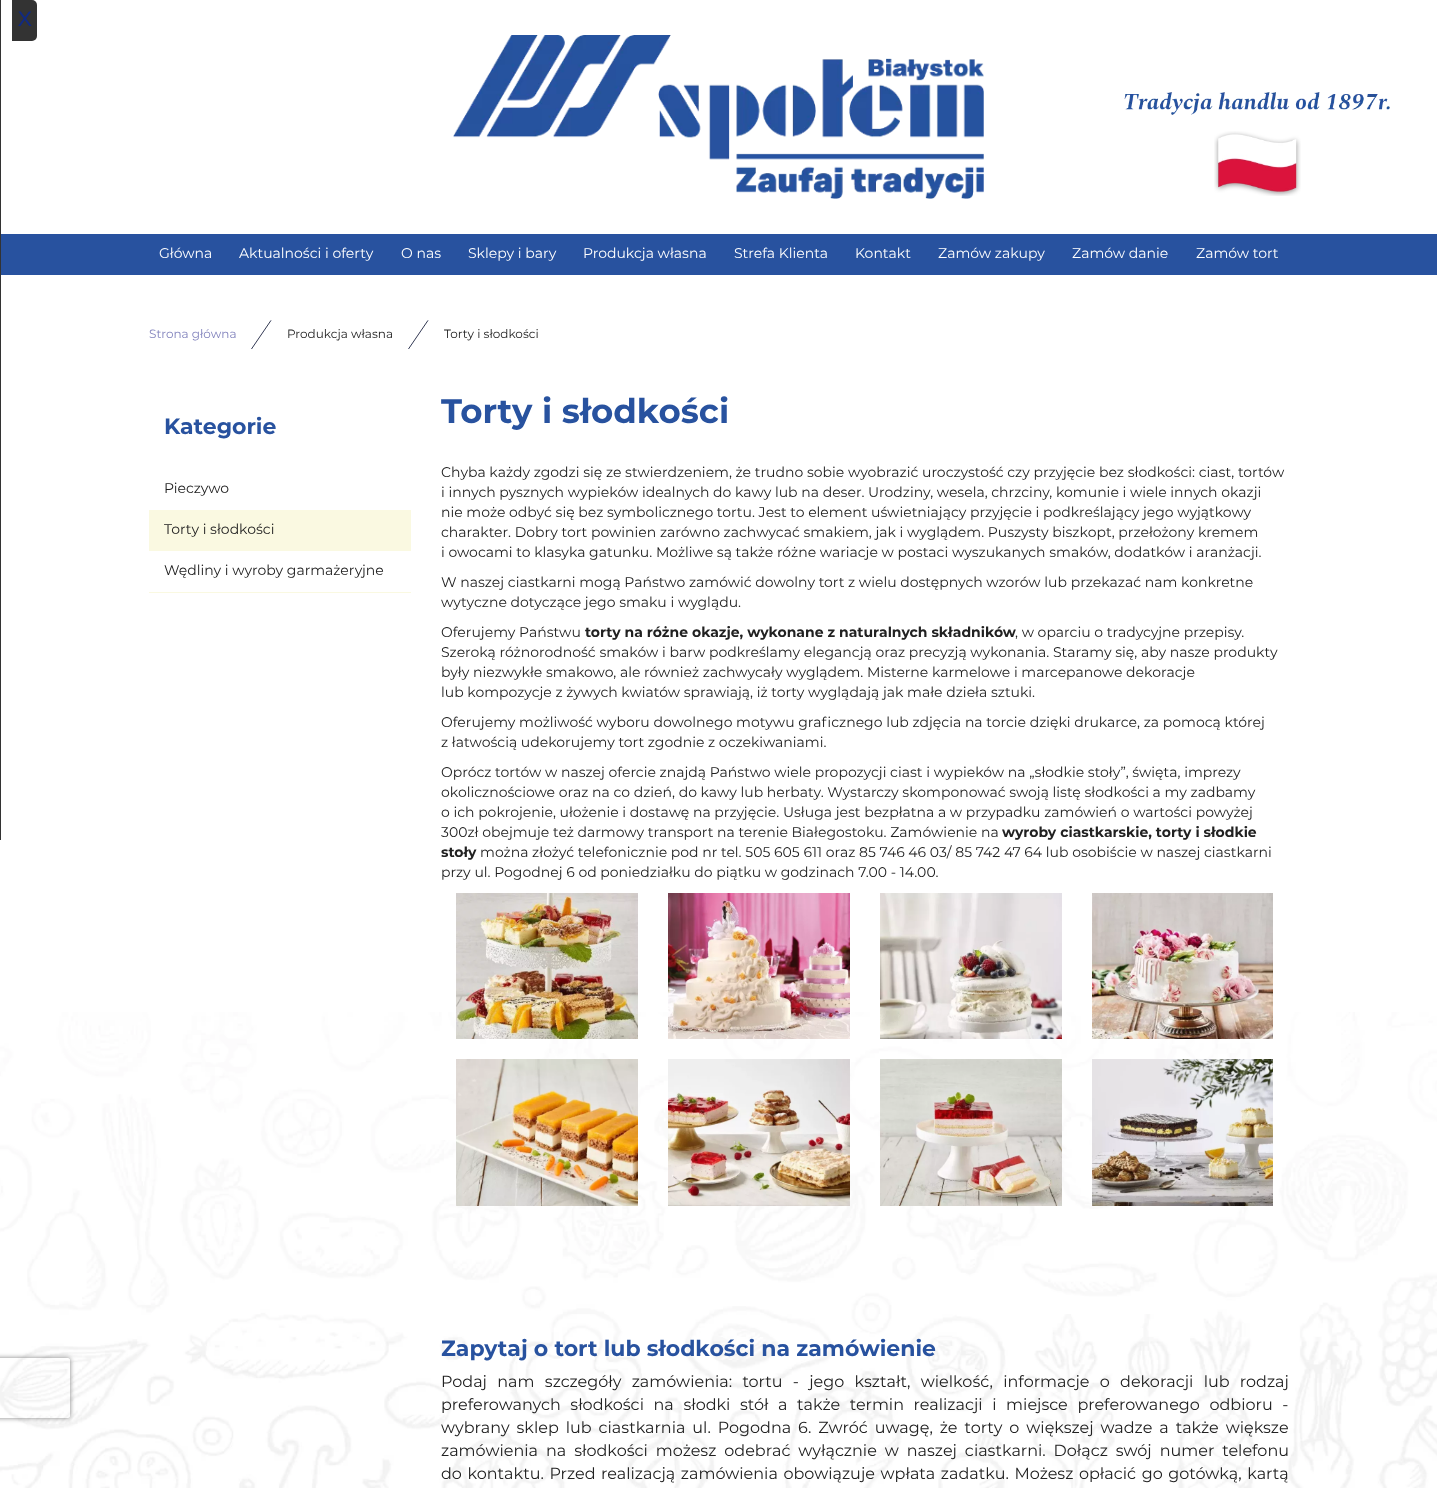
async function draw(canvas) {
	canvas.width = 1437;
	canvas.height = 1488;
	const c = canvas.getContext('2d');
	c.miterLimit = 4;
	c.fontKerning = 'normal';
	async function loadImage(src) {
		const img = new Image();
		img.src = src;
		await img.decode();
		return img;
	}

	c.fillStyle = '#fff';
	c.fillRect(0, 0, 1437, 1488);
	c.strokeStyle = '#333';
	c.strokeRect(-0.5, 0.5, 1, 839);
	c.fillStyle = '#333';
	c.beginPath();
	c.roundRect(12, 0, 25, 41, [0, 5, 5, 0]);
	c.fill();
	c.font = 'bold 20px "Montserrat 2"';
	c.fillStyle = '#102a83';
	c.fillText('X', 18, 26);
	c.drawImage(await loadImage('img1.png'), 453, 35, 531, 164);
	c.drawImage(await loadImage('img2.png'), 1124, 92, 266, 23);
	c.drawImage(await loadImage('img3.png'), 1214, 131, 87, 65);
	c.fillStyle = '#28529f';
	c.fillRect(1, 234, 1436, 41);
	c.font = '14px Montserrat';
	c.fillStyle = '#fff';
	for (const [text, x, y] of [
		['Główna', 159, 258],
		['Aktualności i oferty', 239, 258],
		['O nas', 401, 258],
		['Sklepy i bary', 468, 258],
		['Produkcja własna', 583, 258],
		['Strefa Klienta', 734, 258],
		['Kontakt', 855, 258],
		['Zamów zakupy', 938, 258],
		['Zamów danie', 1072, 258],
		['Zamów tort', 1196, 258],
	]) {
		c.fillText(text, x, y);
	}
	c.font = '12px Montserrat';
	c.fillStyle = '#8283bd';
	c.fillText('Strona główna', 149, 338);
	c.drawImage(await loadImage('img4.png'), 251, 320, 21, 29);
	c.fillStyle = '#212121';
	c.fillText('Produkcja własna', 287, 338);
	c.drawImage(await loadImage('img4.png'), 408, 320, 21, 29);
	c.fillText('Torty i słodkości', 444, 338);
	c.drawImage(await loadImage('img13.png'), 0, 1012, 1437, 476);
	c.save();
	c.beginPath();
	c.moveTo(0, 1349);
	c.lineTo(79, 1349);
	c.lineTo(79, 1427);
	c.lineTo(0, 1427);
	c.closePath();
	c.moveTo(-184, 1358);
	c.lineTo(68, 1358);
	c.bezierCurveTo(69, 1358, 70, 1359, 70, 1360);
	c.lineTo(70, 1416);
	c.bezierCurveTo(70, 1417, 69, 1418, 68, 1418);
	c.lineTo(-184, 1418);
	c.bezierCurveTo(-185, 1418, -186, 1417, -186, 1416);
	c.lineTo(-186, 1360);
	c.bezierCurveTo(-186, 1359, -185, 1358, -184, 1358);
	c.closePath();
	c.clip('evenodd');
	c.fillStyle = '#808080';
	c.filter = 'blur(2.5px)';
	c.beginPath();
	c.roundRect(-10, 1358, 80, 60, 2);
	c.fill();
	c.filter = 'none';
	c.restore();
	c.font = 'bold 22px Montserrat';
	c.fillStyle = '#28529f';
	c.fillText('Kategorie', 164, 434);
	c.font = '14px Montserrat';
	c.fillStyle = '#212121';
	c.fillText('Pieczywo', 164, 493);
	c.fillStyle = '#faf9e1';
	c.fillRect(149, 510, 262, 41);
	c.fillStyle = '#212121';
	c.fillText('Torty i słodkości', 164, 534);
	c.fillStyle = '#faf9e1';
	c.fillRect(149, 592, 262, 1);
	c.fillStyle = '#212121';
	c.fillText('Wędliny i wyroby garmażeryjne', 164, 575);
	c.font = 'bold 34px Montserrat';
	c.fillStyle = '#28529f';
	c.fillText('Torty i słodkości', 441, 423);
	c.font = '14px Montserrat';
	c.fillStyle = '#212121';
	for (const [text, x, y] of [
		['Chyba każdy zgodzi się ze stwierdzeniem, że trudno sobie wyobrazić uroczystość czy przyjęcie bez słodkości: ciast, tortów', 441, 477],
		['i innych pysznych wypieków idealnych do kawy lub na deser. Urodziny, wesela, chrzciny, komunie i wiele innych okazji', 441, 497],
		['nie może odbyć się bez symbolicznego tortu. Jest to element uświetniający przyjęcie i podkreślający jego wyjątkowy', 441, 517],
		['charakter. Dobry tort powinien zarówno zachwycać smakiem, jak i wyglądem. Puszysty biszkopt, przełożony kremem', 441, 537],
		['i owocami to klasyka gatunku. Możliwe są także różne wariacje w postaci wyszukanych smaków, dodatków i aranżacji.', 441, 557],
		['W naszej ciastkarni mogą Państwo zamówić dowolny tort z wielu dostępnych wzorów lub przekazać nam konkretne', 441, 587],
		['wytyczne dotyczące jego smaku i wyglądu.', 441, 607],
		['Oferujemy Państwu', 441, 637],
	]) {
		c.fillText(text, x, y);
	}
	c.font = 'bold 14px Montserrat';
	c.fillText('torty na różne okazje, wykonane z naturalnych składników', 585, 637);
	c.font = '14px Montserrat';
	for (const [text, x, y] of [
		[', w oparciu o tradycyjne przepisy.', 1015, 637],
		['Szeroką różnorodność smaków i barw podkreślamy elegancją oraz precyzją wykonania. Staramy się, aby nasze produkty', 441, 657],
		['były niezwykłe smakowo, ale również zachwycały wyglądem. Misterne karmelowe i marcepanowe dekoracje', 441, 677],
		['lub kompozycje z żywych kwiatów sprawiają, iż torty wyglądają jak małe dzieła sztuki.', 441, 697],
		['Oferujemy możliwość wyboru dowolnego motywu graficznego lub zdjęcia na torcie dzięki drukarce, za pomocą której', 441, 727],
		['z łatwością udekorujemy tort zgodnie z oczekiwaniami.', 441, 747],
		['Oprócz tortów w naszej ofercie znajdą Państwo wiele propozycji ciast i wypieków na „słodkie stoły”, święta, imprezy', 441, 777],
		['okolicznościowe oraz na co dzień, do kawy lub herbaty. Wystarczy skomponować swoją listę słodkości a my zadbamy', 441, 797],
		['o ich pokrojenie, ułożenie i dostawę na przyjęcie. Usługa jest bezpłatna a w przypadku zamówień o wartości powyżej', 441, 817],
		['300zł obejmuje też darmowy transport na terenie Białegostoku. Zamówienie na', 441, 837],
	]) {
		c.fillText(text, x, y);
	}
	c.font = 'bold 14px Montserrat';
	c.fillText('wyroby ciastkarskie, torty i słodkie', 1002, 837);
	c.fillText('stoły', 441, 857);
	c.font = '14px Montserrat';
	c.fillText('można złożyć telefonicznie pod nr tel. 505 605 611 oraz 85 746 46 03/ 85 742 47 64 lub osobiście w naszej ciastkarni', 480, 857);
	c.fillText('przy ul. Pogodnej 6 od poniedziałku do piątku w godzinach 7.00 - 14.00.', 441, 877);
	c.drawImage(await loadImage('img5.png'), 456, 893, 182, 146);
	c.drawImage(await loadImage('img6.png'), 668, 893, 182, 146);
	c.drawImage(await loadImage('img7.png'), 880, 893, 182, 146);
	c.drawImage(await loadImage('img8.png'), 1092, 893, 181, 146);
	c.drawImage(await loadImage('img9.png'), 456, 1059, 182, 147);
	c.drawImage(await loadImage('img10.png'), 668, 1059, 182, 147);
	c.drawImage(await loadImage('img11.png'), 880, 1059, 182, 147);
	c.drawImage(await loadImage('img12.png'), 1092, 1059, 181, 147);
	c.font = 'bold 22px Montserrat';
	c.fillStyle = '#28529f';
	c.fillText('Zapytaj o tort lub słodkości na zamówienie', 441, 1356);
	c.wordSpacing = '6.1px';
	c.font = '16px Montserrat';
	c.fillStyle = '#212121';
	c.fillText('Podaj nam szczegóły zamówienia: tortu - jego kształt, wielkość, informacje o dekoracji lub rodzaj', 441, 1387);
	c.wordSpacing = '5.4px';
	c.fillText('preferowanych słodkości na słodki stół a także termin realizacji i miejsce preferowanego odbioru -', 441, 1410);
	c.wordSpacing = '2.75px';
	c.fillText('wybrany sklep lub ciastkarnia ul. Pogodna 6. Zwróć uwagę, że torty o większej wadze a także większe', 441, 1433);
	c.wordSpacing = '3.75px';
	c.fillText('zamówienia na słodkości możesz odebrać wyłącznie w naszej ciastkarni. Dołącz swój numer telefonu', 441, 1456);
	c.wordSpacing = '1.4px';
	c.fillText('do kontaktu. Przed realizacją zamówienia obowiązuje wpłata zadatku. Możesz opłacić go gotówką, kartą', 441, 1479);
}

draw(document.querySelector('canvas'));
